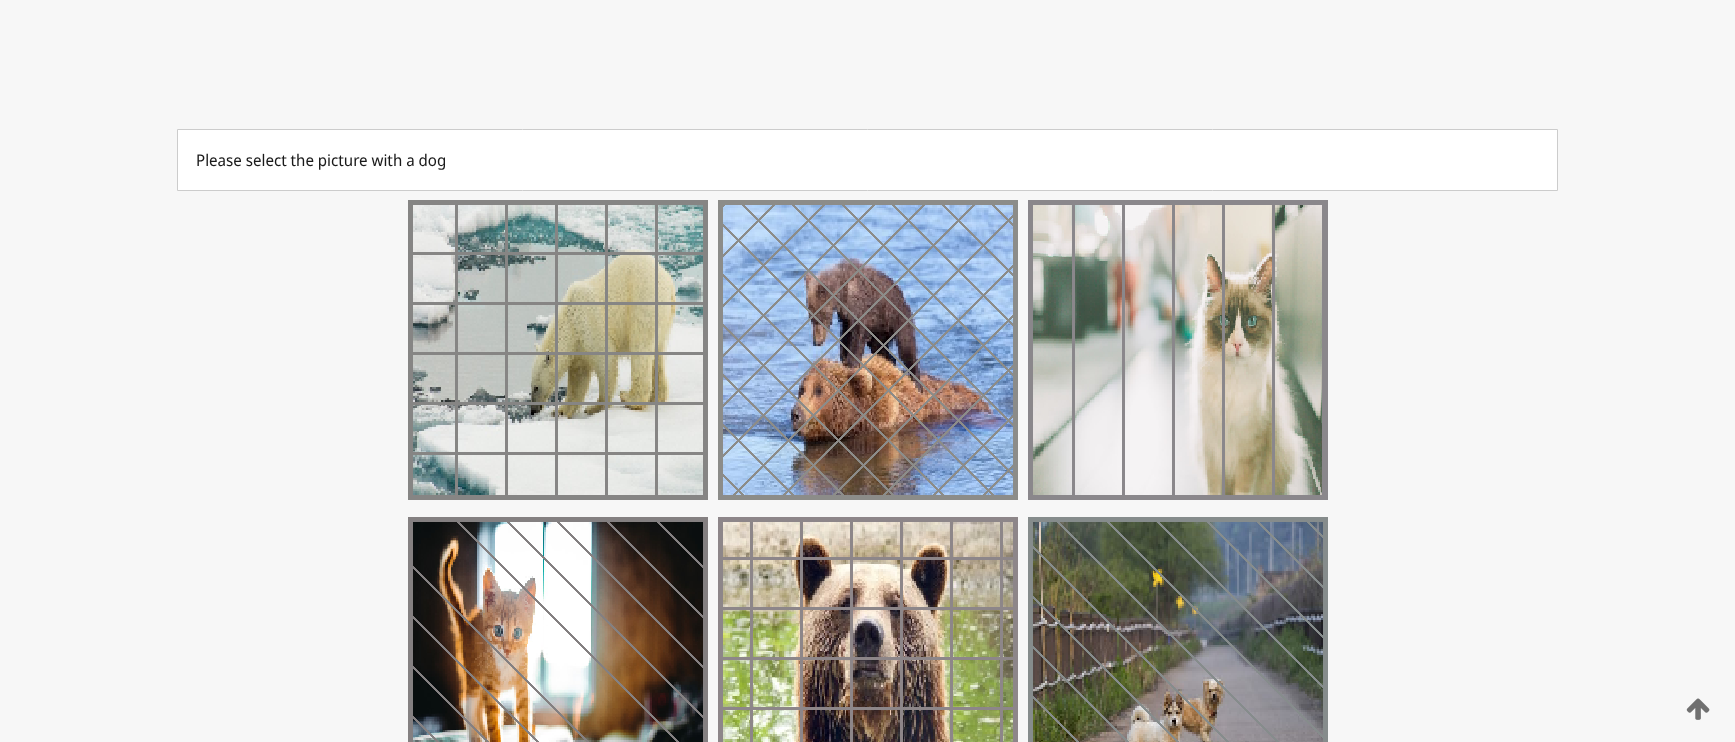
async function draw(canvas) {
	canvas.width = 1735;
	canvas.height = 742;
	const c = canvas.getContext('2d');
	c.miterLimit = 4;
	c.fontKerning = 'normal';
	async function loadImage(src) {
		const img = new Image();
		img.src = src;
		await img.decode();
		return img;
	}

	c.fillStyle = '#f7f7f7';
	c.fillRect(0, 0, 1735, 742);
	c.fillStyle = '#fff';
	c.beginPath();
	c.rect(177.5, 129.5, 1380, 61);
	c.fill();
	c.strokeStyle = '#ccc';
	c.stroke();
	c.font = '16px Noto Sans Display';
	c.fillStyle = '#1a1a1a';
	c.fillText('Please select the picture with a dog', 196, 166);
	c.drawImage(await loadImage('img1.png'), 408, 200, 300, 300);
	c.drawImage(await loadImage('img2.png'), 718, 200, 300, 300);
	c.drawImage(await loadImage('img3.png'), 1028, 200, 300, 300);
	c.drawImage(await loadImage('img4.png'), 408, 517, 300, 225);
	c.drawImage(await loadImage('img5.png'), 718, 517, 300, 225);
	c.drawImage(await loadImage('img6.png'), 1028, 517, 300, 225);
	c.drawImage(await loadImage('img7.png'), 1686, 698, 24, 22);
}

draw(document.querySelector('canvas'));
